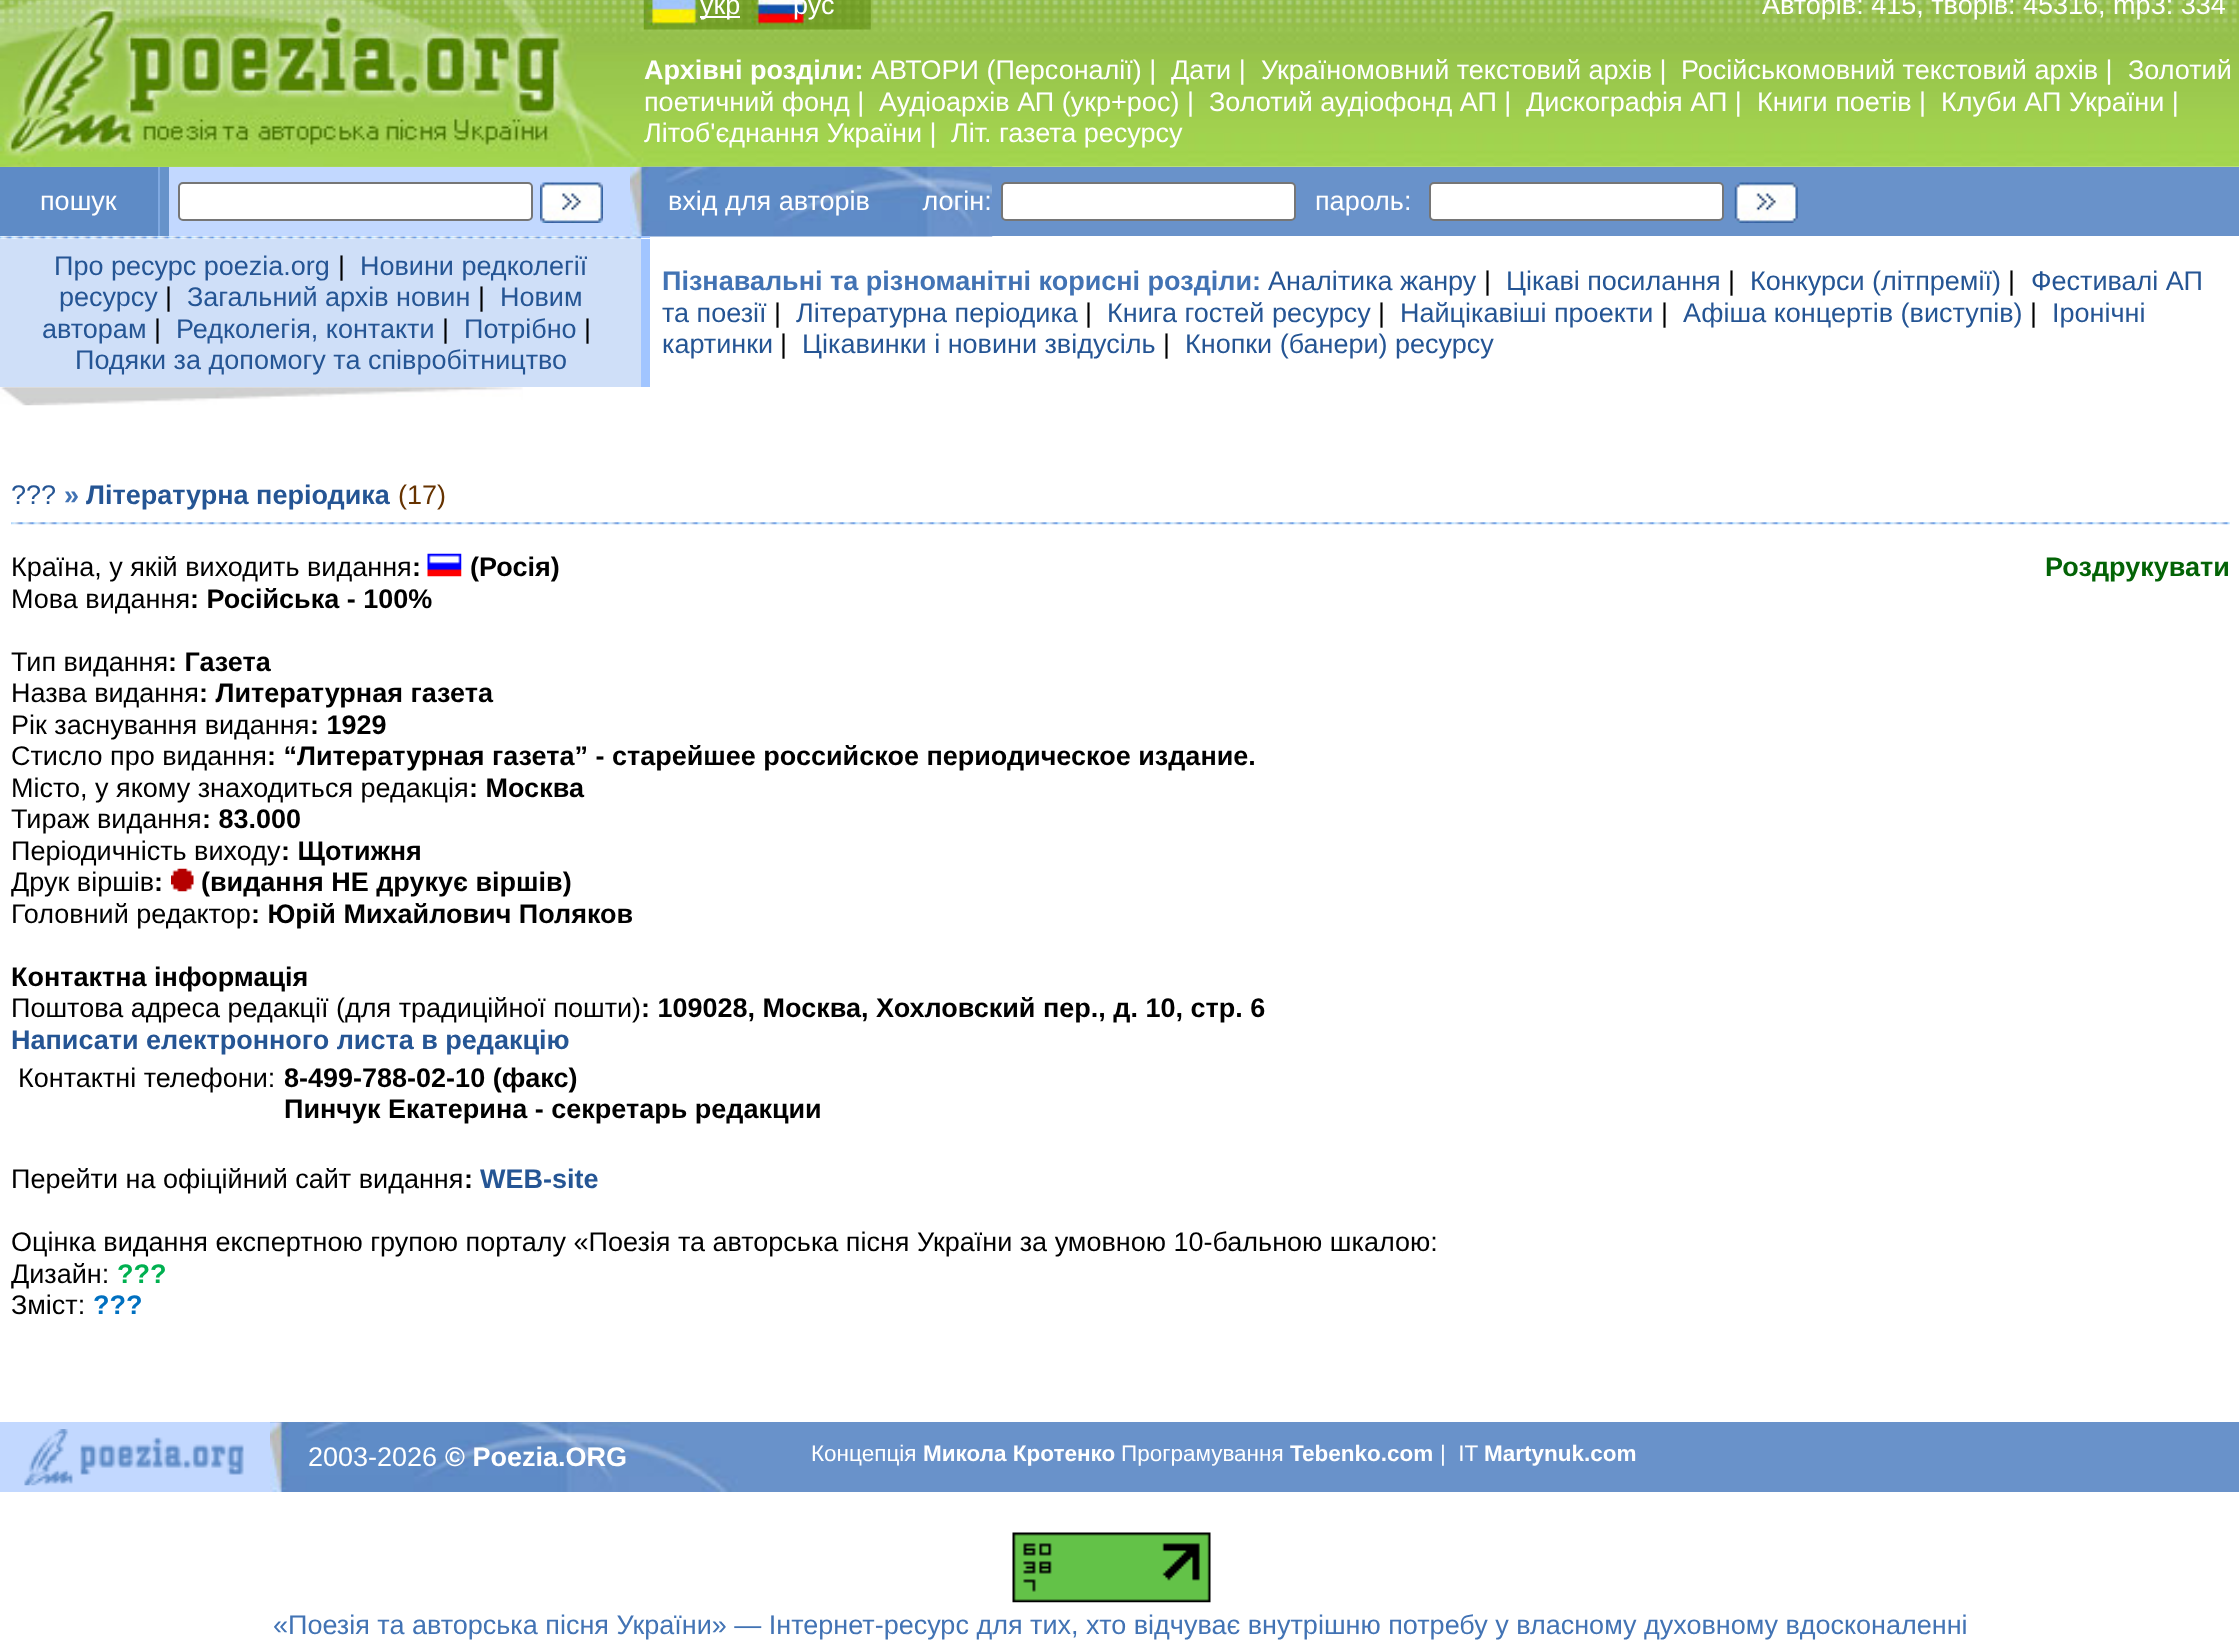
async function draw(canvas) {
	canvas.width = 2239;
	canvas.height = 1652;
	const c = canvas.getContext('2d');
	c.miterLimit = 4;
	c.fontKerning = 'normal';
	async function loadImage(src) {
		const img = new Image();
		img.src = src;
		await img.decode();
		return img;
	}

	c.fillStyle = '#fff';
	c.fillRect(0, 0, 2239, 1652);
	c.drawImage(await loadImage('img1.png'), 0, 0, 2239, 167);
	c.drawImage(await loadImage('img3.png'), 643, 0, 228, 30);
	c.drawImage(await loadImage('img5.png'), 630, 166, 363, 71);
	c.drawImage(await loadImage('img2.png'), 0, 0, 644, 167);
	c.fillRect(700, 16, 40, 2);
	c.font = '27px Liberation Sans';
	for (const [text, x, y] of [
		['укр', 700, 14],
		['рус', 793, 14],
		['Авторiв: 415, творiв: 45316, mp3: 334', 1762, 14],
	]) {
		c.fillText(text, x, y);
	}
	c.font = 'bold 27px Liberation Sans';
	c.fillText('Архівні розділи:', 644, 79);
	c.font = '27px Liberation Sans';
	for (const [text, x, y] of [
		['АВТОРИ (Персоналії) |', 871, 79],
		['Дати |', 1171, 79],
		['Україномовний текстовий архiв |', 1261, 79],
		['Російськомовний текстовий архів |', 1681, 79],
		['Золотий', 2128, 79],
		['поетичний фонд |', 644, 111],
		['Аудiоархiв АП (укр+рос) |', 879, 111],
		['Золотий аудiофонд АП |', 1209, 111],
		['Дискографiя АП |', 1526, 111],
		['Книги поетiв |', 1757, 111],
		['Клуби АП України |', 1941, 111],
		['Лiтоб\'єднання України |', 644, 142],
		['Лiт. газета ресурсу', 951, 142],
	]) {
		c.fillText(text, x, y);
	}
	for (const [x, y, w, h, color] of [
		[158, 167, 2, 69, '#80a9e1'],
		[160, 167, 9, 69, '#6693ca'],
		[169, 167, 461, 69, '#c2d8ff'],
	]) {
		c.fillStyle = color;
		c.fillRect(x, y, w, h);
	}
	c.fillStyle = '#fff';
	c.beginPath();
	c.roundRect(179, 183, 353, 37, 4);
	c.fill();
	c.strokeStyle = '#767676';
	c.lineWidth = 2;
	c.stroke();
	c.fillStyle = '#6992ca';
	c.fillRect(992, 167, 1247, 69);
	c.fillStyle = '#fff';
	c.beginPath();
	c.roundRect(1002, 183, 293, 37, 4);
	c.fill();
	c.stroke();
	c.fillStyle = '#5e8bc6';
	c.fillRect(0, 167, 158, 69);
	c.fillStyle = '#fff';
	c.fillText('пошук', 40, 210);
	c.drawImage(await loadImage('img4.png'), 540, 182, 63, 41);
	c.fillText('вхiд для авторiв       логін:', 668, 210);
	c.fillText('пароль:', 1315, 210);
	c.beginPath();
	c.roundRect(1430, 183, 293, 37, 4);
	c.fill();
	c.stroke();
	c.drawImage(await loadImage('img6.png'), 1734, 182, 64, 41);
	c.drawImage(await loadImage('img7.png'), 0, 236, 642, 3);
	c.fillStyle = '#a1c5ff';
	c.fillRect(641, 236, 9, 2);
	c.fillStyle = '#cfdff8';
	c.fillRect(0, 239, 641, 148);
	c.fillStyle = '#255594';
	c.fillText('Про ресурс poezia.org', 54, 275);
	c.fillStyle = '#000';
	c.fillText('|', 338, 275);
	c.fillStyle = '#255594';
	c.fillText('Новини редколегiї', 360, 275);
	c.fillText('ресурсу', 59, 306);
	c.fillStyle = '#000';
	c.fillText('|', 165, 306);
	c.fillStyle = '#255594';
	c.fillText('Загальний архiв новин', 187, 306);
	c.fillStyle = '#000';
	c.fillText('|', 478, 306);
	c.fillStyle = '#255594';
	c.fillText('Новим', 500, 306);
	c.fillText('авторам', 42, 338);
	c.fillStyle = '#000';
	c.fillText('|', 154, 338);
	c.fillStyle = '#255594';
	c.fillText('Редколегiя, контакти', 176, 338);
	c.fillStyle = '#000';
	c.fillText('|', 442, 338);
	c.fillStyle = '#255594';
	c.fillText('Потрiбно', 464, 338);
	c.fillStyle = '#000';
	c.fillText('|', 584, 338);
	c.fillStyle = '#255594';
	c.fillText('Подяки за допомогу та співробітництво', 75, 369);
	c.fillStyle = '#a1c5ff';
	c.fillRect(641, 239, 9, 148);
	c.font = 'bold 27px Liberation Sans';
	c.fillStyle = '#4273b4';
	c.fillText('Пізнавальні та різноманітні корисні розділи:', 662, 290);
	c.font = '27px Liberation Sans';
	c.fillStyle = '#255594';
	c.fillText('Аналiтика жанру', 1268, 290);
	c.fillStyle = '#000';
	c.fillText('|', 1484, 290);
	c.fillStyle = '#255594';
	c.fillText('Цікаві посилання', 1506, 290);
	c.fillStyle = '#000';
	c.fillText('|', 1728, 290);
	c.fillStyle = '#255594';
	c.fillText('Конкурси (лiтпремiї)', 1750, 290);
	c.fillStyle = '#000';
	c.fillText('|', 2008, 290);
	c.fillStyle = '#255594';
	c.fillText('Фестивалi АП', 2031, 290);
	c.fillText('та поезiї', 662, 322);
	c.fillStyle = '#000';
	c.fillText('|', 774, 322);
	c.fillStyle = '#255594';
	c.fillText('Літературна періодика', 796, 322);
	c.fillStyle = '#000';
	c.fillText('|', 1085, 322);
	c.fillStyle = '#255594';
	c.fillText('Книга гостей ресурсу', 1107, 322);
	c.fillStyle = '#000';
	c.fillText('|', 1378, 322);
	c.fillStyle = '#255594';
	c.fillText('Найцiкавiшi проекти', 1400, 322);
	c.fillStyle = '#000';
	c.fillText('|', 1661, 322);
	c.fillStyle = '#255594';
	c.fillText('Афіша концертів (виступів)', 1683, 322);
	c.fillStyle = '#000';
	c.fillText('|', 2030, 322);
	c.fillStyle = '#255594';
	c.fillText('Iронiчнi', 2052, 322);
	c.fillText('картинки', 662, 353);
	c.fillStyle = '#000';
	c.fillText('|', 780, 353);
	c.fillStyle = '#255594';
	c.fillText('Цікавинки і новини звідусіль', 802, 353);
	c.fillStyle = '#000';
	c.fillText('|', 1163, 353);
	c.fillStyle = '#255594';
	c.fillText('Кнопки (банери) ресурсу', 1185, 353);
	c.drawImage(await loadImage('img8.png'), 0, 387, 523, 19);
	c.fillText('???', 11, 504);
	c.font = 'bold 27px Liberation Sans';
	c.fillStyle = '#4273b4';
	c.fillText('»', 64, 504);
	c.fillStyle = '#255594';
	c.fillText('Літературна періодика', 86, 504);
	c.font = '27px Liberation Sans';
	c.fillStyle = '#630';
	c.fillText('(17)', 398, 504);
	c.drawImage(await loadImage('img9.png'), 11, 522, 2219, 3);
	c.fillStyle = '#000';
	c.fillText('Країна, у якій виходить видання', 11, 576);
	c.font = 'bold 27px Liberation Sans';
	c.fillText(':', 412, 576);
	c.drawImage(await loadImage('img10.png'), 427, 553, 35, 24);
	c.fillText('(Росія)', 470, 576);
	c.fillStyle = '#036306';
	c.fillText('Роздрукувати', 2045, 576);
	c.font = '27px Liberation Sans';
	c.fillStyle = '#000';
	c.fillText('Мова видання', 11, 608);
	c.font = 'bold 27px Liberation Sans';
	c.fillText(': Російська - 100%', 190, 608);
	c.font = '27px Liberation Sans';
	c.fillText('Тип видання', 11, 671);
	c.font = 'bold 27px Liberation Sans';
	c.fillText(': Газета', 168, 671);
	c.font = '27px Liberation Sans';
	c.fillText('Назва видання', 11, 702);
	c.font = 'bold 27px Liberation Sans';
	c.fillText(': Литературная газета', 199, 702);
	c.font = '27px Liberation Sans';
	c.fillText('Рік заснування видання', 11, 734);
	c.font = 'bold 27px Liberation Sans';
	c.fillText(': 1929', 310, 734);
	c.font = '27px Liberation Sans';
	c.fillText('Стисло про видання', 11, 765);
	c.font = 'bold 27px Liberation Sans';
	c.fillText(': “Литературная газета” - старейшее российское периодическое издание.', 267, 765);
	c.font = '27px Liberation Sans';
	c.fillText('Місто, у якому знаходиться редакція', 11, 797);
	c.font = 'bold 27px Liberation Sans';
	c.fillText(': Москва', 469, 797);
	c.font = '27px Liberation Sans';
	c.fillText('Тираж видання', 11, 828);
	c.font = 'bold 27px Liberation Sans';
	c.fillText(': 83.000', 202, 828);
	c.font = '27px Liberation Sans';
	c.fillText('Періодичність виходу', 11, 860);
	c.font = 'bold 27px Liberation Sans';
	c.fillText(': Щотижня', 281, 860);
	c.font = '27px Liberation Sans';
	c.fillText('Друк віршів', 11, 891);
	c.font = 'bold 27px Liberation Sans';
	c.fillText(':', 154, 891);
	c.drawImage(await loadImage('img11.png'), 171, 868, 23, 24);
	c.fillText('(видання НЕ друкує віршів)', 201, 891);
	c.font = '27px Liberation Sans';
	c.fillText('Головний редактор', 11, 923);
	c.font = 'bold 27px Liberation Sans';
	c.fillText(': Юрій Михайлович Поляков', 251, 923);
	c.fillText('Контактна інформація', 11, 986);
	c.font = '27px Liberation Sans';
	c.fillText('Поштова адреса редакції (для традиційної пошти)', 11, 1017);
	c.font = 'bold 27px Liberation Sans';
	c.fillText(': 109028, Москва, Хохловский пер., д. 10, стр. 6', 641, 1017);
	c.fillStyle = '#255594';
	c.fillText('Написати електронного листа в редакцію', 11, 1049);
	c.font = '27px Liberation Sans';
	c.fillStyle = '#000';
	c.fillText('Контактні телефони:', 18, 1087);
	c.font = 'bold 27px Liberation Sans';
	c.fillText('8-499-788-02-10 (факс)', 284, 1087);
	c.fillText('Пинчук Екатерина - секретарь редакции', 284, 1118);
	c.font = '27px Liberation Sans';
	c.fillText('Перейти на офіційний сайт видання', 11, 1188);
	c.font = 'bold 27px Liberation Sans';
	c.fillText(':', 464, 1188);
	c.fillStyle = '#255594';
	c.fillText('WEB-site', 480, 1188);
	c.font = '27px Liberation Sans';
	c.fillStyle = '#000';
	c.fillText('Оцінка видання експертною групою порталу «Поезія та авторська пісня України за умовною 10-бальною шкалою:', 11, 1251);
	c.fillText('Дизайн:', 11, 1283);
	c.font = 'bold 27px Liberation Sans';
	c.fillStyle = '#00b050';
	c.fillText('???', 117, 1283);
	c.font = '27px Liberation Sans';
	c.fillStyle = '#000';
	c.fillText('Зміст:', 11, 1314);
	c.font = 'bold 27px Liberation Sans';
	c.fillStyle = '#0070c0';
	c.fillText('???', 93, 1314);
	c.fillStyle = '#c2d8ff';
	c.fillRect(0, 1422, 270, 70);
	c.drawImage(await loadImage('img12.png'), 24, 1429, 220, 57);
	c.fillStyle = '#6992ca';
	c.fillRect(270, 1422, 1969, 70);
	c.drawImage(await loadImage('img13.png'), 270, 1422, 468, 70);
	c.font = '27px Liberation Sans';
	c.fillStyle = '#fff';
	c.fillText('2003-2026', 308, 1466);
	c.font = 'bold 27px Liberation Sans';
	c.fillText('© Poezia.ORG', 445, 1466);
	c.font = '22.5px Liberation Sans';
	c.fillText('Концепцiя', 811, 1461);
	c.font = 'bold 22.5px Liberation Sans';
	c.fillText('Микола Кротенко', 923, 1461);
	c.font = '22.5px Liberation Sans';
	c.fillText('Програмування', 1121, 1461);
	c.font = 'bold 22.5px Liberation Sans';
	c.fillText('Tebenko.com', 1290, 1461);
	c.font = '22.5px Liberation Sans';
	c.fillText('|  IT', 1440, 1461);
	c.font = 'bold 22.5px Liberation Sans';
	c.fillText('Martynuk.com', 1484, 1461);
	c.drawImage(await loadImage('img14.png'), 1012, 1532, 199, 71);
	c.font = '27px Liberation Sans';
	c.fillStyle = '#4273b4';
	c.fillText('«Поезія та авторська пісня України» — Інтернет-ресурс для тих, хто відчуває внутрішню потребу у власному духовному вдосконаленні', 273, 1634);
}

draw(document.querySelector('canvas'));
